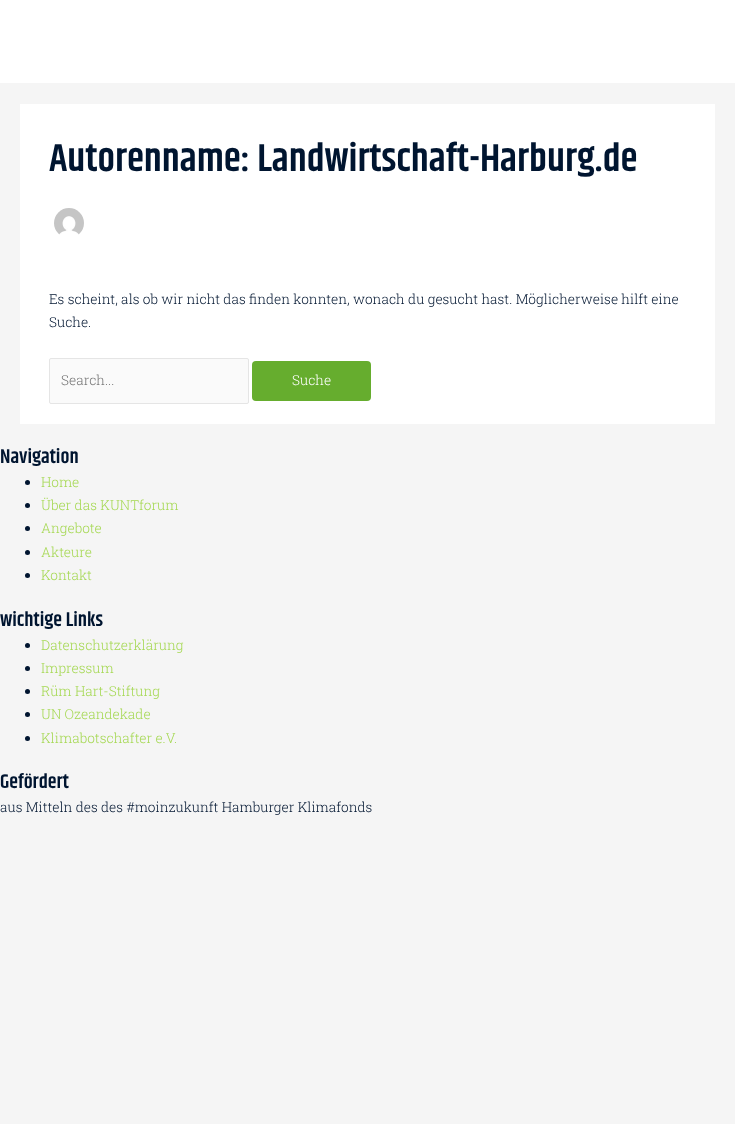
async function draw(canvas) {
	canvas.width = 735;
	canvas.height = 1124;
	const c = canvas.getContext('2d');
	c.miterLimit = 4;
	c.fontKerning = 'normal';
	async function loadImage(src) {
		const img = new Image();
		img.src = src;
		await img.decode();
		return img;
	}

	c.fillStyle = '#f5f5f5';
	c.fillRect(0, 0, 735, 1124);
	c.fillStyle = '#fff';
	c.fillRect(0, 0, 735, 83);
	c.fillRect(20, 104, 695, 320);
	c.font = '600 39.1px Khand';
	c.fillStyle = '#001530';
	c.fillText('Autorenname: Landwirtschaft-Harburg.de', 49, 171);
	c.drawImage(await loadImage('img1.png'), 54, 208, 30, 27);
	c.font = '300 13.7px Roboto Slab';
	c.fillText('Es scheint, als ob wir nicht das finden konnten, wonach du gesucht hast. Möglicherweise hilft eine', 49, 304);
	c.fillText('Suche.', 49, 327);
	c.fillStyle = '#fafafa';
	c.beginPath();
	c.roundRect(49.5, 358.5, 199, 45, 1.5);
	c.fill();
	c.strokeStyle = '#e5e5e5';
	c.stroke();
	c.fillStyle = '#757575';
	c.fillText('Search...', 61, 385);
	c.fillStyle = '#66ad2e';
	c.beginPath();
	c.roundRect(252, 361, 119, 40, 4);
	c.fill();
	c.fillStyle = '#fff';
	c.fillText('Suche', 292, 385);
	c.font = '600 20px Khand';
	c.fillStyle = '#001530';
	c.fillText('Navigation', 0, 463);
	c.beginPath();
	c.arc(27.5, 482.5, 2.5, 0, 2 * Math.PI);
	c.fill();
	c.font = '300 13.7px Roboto Slab';
	c.fillStyle = '#a5d852';
	c.fillText('Home', 41, 487);
	c.fillStyle = '#001530';
	c.beginPath();
	c.arc(27.5, 505.5, 2.5, 0, 2 * Math.PI);
	c.fill();
	c.fillStyle = '#a5d852';
	c.fillText('Über das KUNTforum', 41, 510);
	c.fillStyle = '#001530';
	c.beginPath();
	c.arc(27.5, 528.5, 2.5, 0, 2 * Math.PI);
	c.fill();
	c.fillStyle = '#a5d852';
	c.fillText('Angebote', 41, 533);
	c.fillStyle = '#001530';
	c.beginPath();
	c.arc(27.5, 552.5, 2.5, 0, 2 * Math.PI);
	c.fill();
	c.fillStyle = '#a5d852';
	c.fillText('Akteure', 41, 557);
	c.fillStyle = '#001530';
	c.beginPath();
	c.arc(27.5, 575.5, 2.5, 0, 2 * Math.PI);
	c.fill();
	c.fillStyle = '#a5d852';
	c.fillText('Kontakt', 41, 580);
	c.font = '600 20px Khand';
	c.fillStyle = '#001530';
	c.fillText('wichtige Links', 0, 626);
	c.beginPath();
	c.arc(27.5, 645.5, 2.5, 0, 2 * Math.PI);
	c.fill();
	c.font = '300 13.7px Roboto Slab';
	c.fillStyle = '#a5d852';
	c.fillText('Datenschutzerklärung', 41, 650);
	c.fillStyle = '#001530';
	c.beginPath();
	c.arc(27.5, 668.5, 2.5, 0, 2 * Math.PI);
	c.fill();
	c.fillStyle = '#a5d852';
	c.fillText('Impressum', 41, 673);
	c.fillStyle = '#001530';
	c.beginPath();
	c.arc(27.5, 691.5, 2.5, 0, 2 * Math.PI);
	c.fill();
	c.fillStyle = '#a5d852';
	c.fillText('Rüm Hart-Stiftung', 41, 696);
	c.fillStyle = '#001530';
	c.beginPath();
	c.arc(27.5, 714.5, 2.5, 0, 2 * Math.PI);
	c.fill();
	c.fillStyle = '#a5d852';
	c.fillText('UN Ozeandekade', 41, 719);
	c.fillStyle = '#001530';
	c.beginPath();
	c.arc(27.5, 738.5, 2.5, 0, 2 * Math.PI);
	c.fill();
	c.fillStyle = '#a5d852';
	c.fillText('Klimabotschafter e.V.', 41, 743);
	c.font = '600 20px Khand';
	c.fillStyle = '#001530';
	c.fillText('Gefördert', 0, 788);
	c.font = '300 13.7px Roboto Slab';
	c.fillText('aus Mitteln des des #moinzukunft Hamburger Klimafonds', 0, 812);
}

draw(document.querySelector('canvas'));
